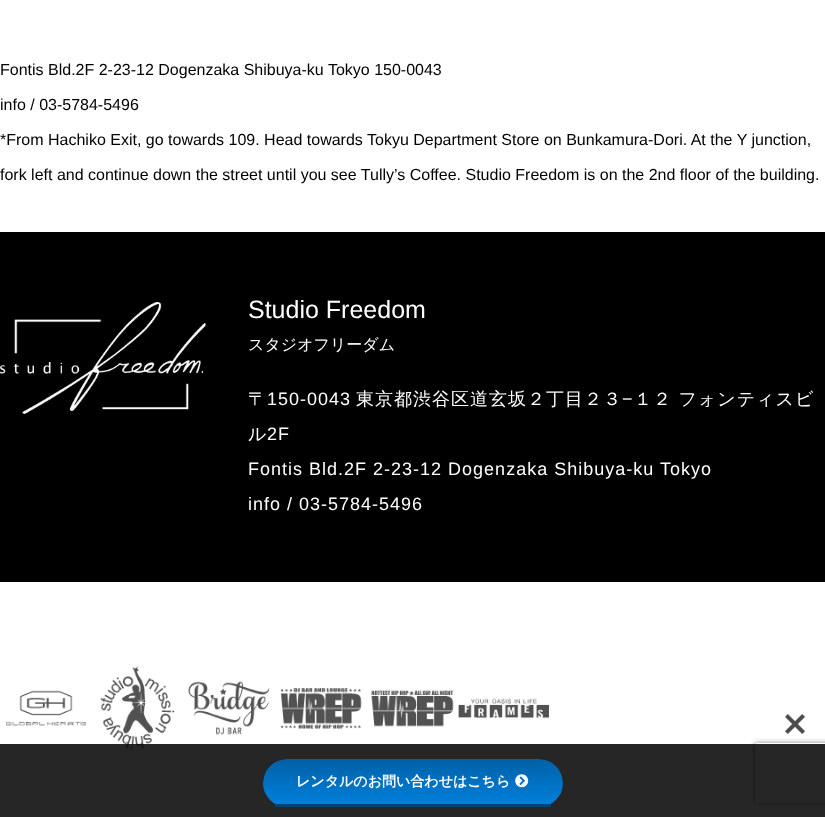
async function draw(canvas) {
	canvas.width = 825;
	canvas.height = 817;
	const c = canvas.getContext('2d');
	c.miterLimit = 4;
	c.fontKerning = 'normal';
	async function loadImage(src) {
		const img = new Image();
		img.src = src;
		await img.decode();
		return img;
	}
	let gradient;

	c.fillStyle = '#fff';
	c.fillRect(0, 0, 825, 817);
	c.font = '16px Liberation Sans';
	c.fillStyle = '#000';
	for (const [text, x, y] of [
		['Fontis Bld.2F 2-23-12 Dogenzaka Shibuya-ku Tokyo 150-0043', 0, 75],
		['info / 03-5784-5496', 0, 110],
		['*From Hachiko Exit, go towards 109. Head towards Tokyu Department Store on Bunkamura-Dori. At the Y junction,', 0, 145],
		['fork left and continue down the street until you see Tully’s Coffee. Studio Freedom is on the 2nd floor of the building.', 0, 180],
	]) {
		c.fillText(text, x, y);
	}
	c.fillRect(0, 232, 825, 350);
	c.drawImage(await loadImage('img1.png'), 0, 302, 206, 112);
	c.font = '25px Liberation Sans';
	c.fillStyle = '#fff';
	c.fillText('Studio Freedom', 248, 318);
	c.font = '500 16px WenQuanYi Zen Hei';
	c.fillText('スタジオフリーダム', 248, 350);
	c.letterSpacing = '1px';
	c.font = '500 18px WenQuanYi Zen Hei';
	c.fillText('〒', 248, 405);
	c.font = '18px Liberation Sans';
	c.fillText('150-0043', 267, 405);
	c.font = '500 18px WenQuanYi Zen Hei';
	c.fillText('東京都渋谷区道玄坂２丁目２３', 356, 405);
	c.font = '18px Liberation Sans';
	c.fillText('−', 622, 405);
	c.font = '500 18px WenQuanYi Zen Hei';
	c.fillText('１２ フォンティスビ', 634, 405);
	c.fillText('ル', 248, 440);
	c.font = '18px Liberation Sans';
	for (const [text, x, y] of [
		['2F', 267, 440],
		['Fontis Bld.2F 2-23-12 Dogenzaka Shibuya-ku Tokyo', 248, 475],
		['info / 03-5784-5496', 248, 510],
	]) {
		c.fillText(text, x, y);
	}
	c.drawImage(await loadImage('img2.png'), 6, 690, 81, 36);
	c.drawImage(await loadImage('img3.png'), 100, 666, 75, 83);
	c.drawImage(await loadImage('img4.png'), 188, 681, 82, 54);
	c.drawImage(await loadImage('img5.png'), 280, 688, 82, 41);
	c.drawImage(await loadImage('img6.png'), 371, 690, 83, 37);
	c.drawImage(await loadImage('img7.png'), 458, 698, 91, 21);
	c.save();
	c.beginPath();
	c.moveTo(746, 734);
	c.lineTo(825, 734);
	c.lineTo(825, 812);
	c.lineTo(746, 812);
	c.closePath();
	c.moveTo(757, 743);
	c.lineTo(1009, 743);
	c.bezierCurveTo(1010, 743, 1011, 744, 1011, 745);
	c.lineTo(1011, 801);
	c.bezierCurveTo(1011, 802, 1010, 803, 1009, 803);
	c.lineTo(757, 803);
	c.bezierCurveTo(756, 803, 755, 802, 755, 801);
	c.lineTo(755, 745);
	c.bezierCurveTo(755, 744, 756, 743, 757, 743);
	c.closePath();
	c.clip('evenodd');
	c.fillStyle = '#808080';
	c.filter = 'blur(2.5px)';
	c.beginPath();
	c.roundRect(755, 743, 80, 60, 2);
	c.fill();
	c.filter = 'none';
	c.restore();
	c.fillStyle = '#000000d9';
	c.fillRect(0, 744, 825, 73);
	c.drawImage(await loadImage('img8.png'), 785, 713, 20, 21);
	c.save();
	c.beginPath();
	c.roundRect(263, 759, 300, 48, 24);
	c.clip();
	gradient = c.createLinearGradient(413, 759, 413, 804);
	gradient.addColorStop(0, '#0061a7');
	gradient.addColorStop(1, '#007fda');
	c.fillStyle = gradient;
	c.beginPath();
	c.roundRect(263, 759, 300, 45, [24, 24, 0, 0]);
	c.fill();
	c.restore();
	c.fillStyle = '#004374';
	c.fillRect(275, 804, 276, 3);
	c.letterSpacing = '0px';
	c.font = 'bold 14px WenQuanYi Zen Hei';
	c.fillStyle = '#fff';
	c.fillText('レンタルのお問い合わせはこちら', 296, 786);
	c.drawImage(await loadImage('img9.png'), 515, 774, 14, 14);
}

draw(document.querySelector('canvas'));
